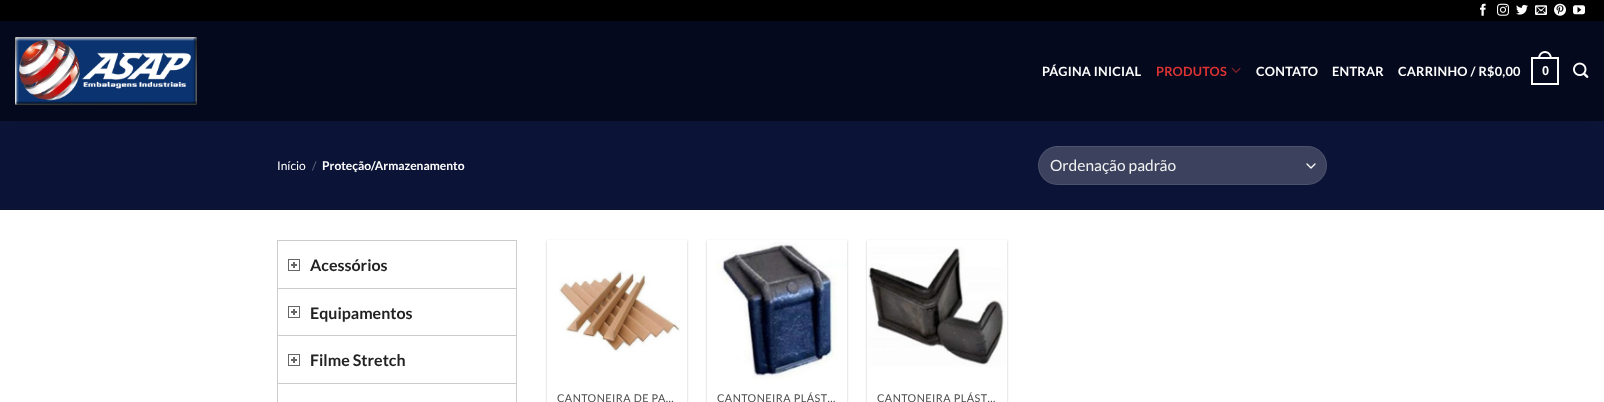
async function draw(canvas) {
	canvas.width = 1604;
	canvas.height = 402;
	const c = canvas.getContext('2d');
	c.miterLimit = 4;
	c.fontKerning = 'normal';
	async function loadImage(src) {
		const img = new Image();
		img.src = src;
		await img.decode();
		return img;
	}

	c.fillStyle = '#fff';
	c.fillRect(0, 0, 1604, 402);
	c.fillStyle = '#000';
	c.fillRect(0, 0, 1604, 21);
	c.drawImage(await loadImage('img1.png'), 1480, 3, 6, 13);
	c.drawImage(await loadImage('img2.png'), 1497, 3, 12, 13);
	c.drawImage(await loadImage('img3.png'), 1516, 4, 12, 11);
	c.drawImage(await loadImage('img4.png'), 1535, 5, 12, 10);
	c.drawImage(await loadImage('img5.png'), 1554, 3, 12, 13);
	c.drawImage(await loadImage('img6.png'), 1573, 5, 12, 10);
	c.fillStyle = '#04091e';
	c.fillRect(0, 21, 1604, 100);
	c.drawImage(await loadImage('img7.png'), 15, 37, 182, 68);
	c.letterSpacing = '0.25px';
	c.font = 'bold 12.75px Lato';
	c.fillStyle = '#fff';
	c.fillText('PÁGINA INICIAL', 1042, 76);
	c.fillStyle = '#d33';
	c.fillText('PRODUTOS', 1156, 76);
	c.drawImage(await loadImage('img8.png'), 1231, 67, 10, 6);
	c.fillStyle = '#fff';
	for (const [text, x, y] of [
		['CONTATO', 1256, 76],
		['ENTRAR', 1332, 76],
		['CARRINHO / R$0,00', 1398, 76],
	]) {
		c.fillText(text, x, y);
	}
	c.strokeStyle = '#fff';
	c.lineWidth = 2;
	c.strokeRect(1532, 58, 26, 26);
	c.beginPath();
	c.moveTo(1545, 51);
	c.bezierCurveTo(1549.5, 51, 1552, 55, 1552, 59);
	c.lineTo(1538, 59);
	c.bezierCurveTo(1538, 55, 1540.5, 51, 1545, 51);
	c.closePath();
	c.moveTo(1545, 53);
	c.bezierCurveTo(1548.5, 53, 1550, 56, 1550, 59);
	c.lineTo(1540, 59);
	c.bezierCurveTo(1540, 56, 1541.5, 53, 1545, 53);
	c.closePath();
	c.fill('evenodd');
	c.font = 'bold 12.75px Liberation Sans';
	c.fillText('0', 1542, 75);
	c.drawImage(await loadImage('img9.png'), 1573, 62, 16, 16);
	c.fillStyle = '#0b1336';
	c.fillRect(0, 121, 1604, 89);
	c.fillStyle = '#0a1131';
	c.fillRect(15, 121, 1574, 1);
	c.letterSpacing = '0px';
	c.font = '12px Lato';
	c.fillStyle = '#fff';
	c.fillText('Início', 277, 170);
	c.fillStyle = '#60667c';
	c.fillText('/', 312, 170);
	c.font = 'bold 12px Lato';
	c.fillStyle = '#fff';
	c.fillText('Proteção/Armazenamento', 322, 170);
	c.fillStyle = '#3c425e';
	c.beginPath();
	c.roundRect(1038, 146, 289, 39, 19.5);
	c.fill();
	c.beginPath();
	c.moveTo(1307, 164);
	c.lineTo(1311, 168);
	c.lineTo(1315, 164);
	c.lineWidth = 1.3;
	c.lineCap = 'round';
	c.lineJoin = 'round';
	c.stroke();
	c.beginPath();
	c.roundRect(1038.5, 146.5, 288, 38, 19);
	c.strokeStyle = '#ffffff17';
	c.lineWidth = 1;
	c.lineJoin = 'miter';
	c.stroke();
	c.font = '15.5px Lato';
	c.fillStyle = '#f1f1f1';
	c.fillText('Ordenação padrão', 1050, 171);
	for (const [x, y, w, h, color] of [
		[277, 240, 240, 1, '#ccc'],
		[516, 240, 1, 162, '#ccc'],
		[277, 240, 1, 162, '#ccc'],
	]) {
		c.fillStyle = color;
		c.fillRect(x, y, w, h);
	}
	c.drawImage(await loadImage('img10.png'), 288, 259, 12, 12);
	c.fillRect(278, 288, 238, 1);
	c.font = 'bold 16px Lato';
	c.fillStyle = '#222';
	c.fillText('Acessórios', 310, 271);
	c.drawImage(await loadImage('img10.png'), 288, 306, 12, 12);
	c.fillStyle = '#ccc';
	c.fillRect(278, 335, 238, 1);
	c.fillStyle = '#222';
	c.fillText('Equipamentos', 310, 319);
	c.drawImage(await loadImage('img10.png'), 288, 354, 12, 12);
	c.fillStyle = '#ccc';
	c.fillRect(278, 383, 238, 1);
	c.fillStyle = '#222';
	c.fillText('Filme Stretch', 310, 366);
	c.save();
	c.beginPath();
	c.moveTo(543, 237);
	c.lineTo(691, 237);
	c.lineTo(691, 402);
	c.lineTo(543, 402);
	c.closePath();
	c.moveTo(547, 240);
	c.lineTo(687, 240);
	c.lineTo(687, 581);
	c.lineTo(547, 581);
	c.closePath();
	c.clip('evenodd');
	c.fillStyle = '#0000003d';
	c.filter = 'blur(1px)';
	c.beginPath();
	c.rect(547, 241, 140, 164);
	c.fill();
	c.filter = 'none';
	c.restore();
	c.drawImage(await loadImage('img11.png'), 559, 270, 121, 82);
	c.letterSpacing = '0.5px';
	c.font = '10.75px Lato';
	c.fillStyle = '#4d4d4d';
	c.fillText('CANTONEIRA DE PA…', 557, 402);
	c.save();
	c.beginPath();
	c.moveTo(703, 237);
	c.lineTo(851, 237);
	c.lineTo(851, 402);
	c.lineTo(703, 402);
	c.closePath();
	c.moveTo(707, 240);
	c.lineTo(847, 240);
	c.lineTo(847, 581);
	c.lineTo(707, 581);
	c.closePath();
	c.clip('evenodd');
	c.fillStyle = '#0000003d';
	c.filter = 'blur(1px)';
	c.beginPath();
	c.rect(707, 241, 140, 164);
	c.fill();
	c.filter = 'none';
	c.restore();
	c.drawImage(await loadImage('img12.png'), 715, 242, 132, 138);
	c.fillText('CANTONEIRA PLÁST…', 717, 402);
	c.save();
	c.beginPath();
	c.moveTo(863, 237);
	c.lineTo(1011, 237);
	c.lineTo(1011, 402);
	c.lineTo(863, 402);
	c.closePath();
	c.moveTo(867, 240);
	c.lineTo(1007, 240);
	c.lineTo(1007, 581);
	c.lineTo(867, 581);
	c.closePath();
	c.clip('evenodd');
	c.fillStyle = '#0000003d';
	c.filter = 'blur(1px)';
	c.beginPath();
	c.rect(867, 241, 140, 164);
	c.fill();
	c.filter = 'none';
	c.restore();
	c.drawImage(await loadImage('img13.png'), 868, 247, 138, 120);
	c.fillText('CANTONEIRA PLÁST…', 877, 402);
}

draw(document.querySelector('canvas'));
